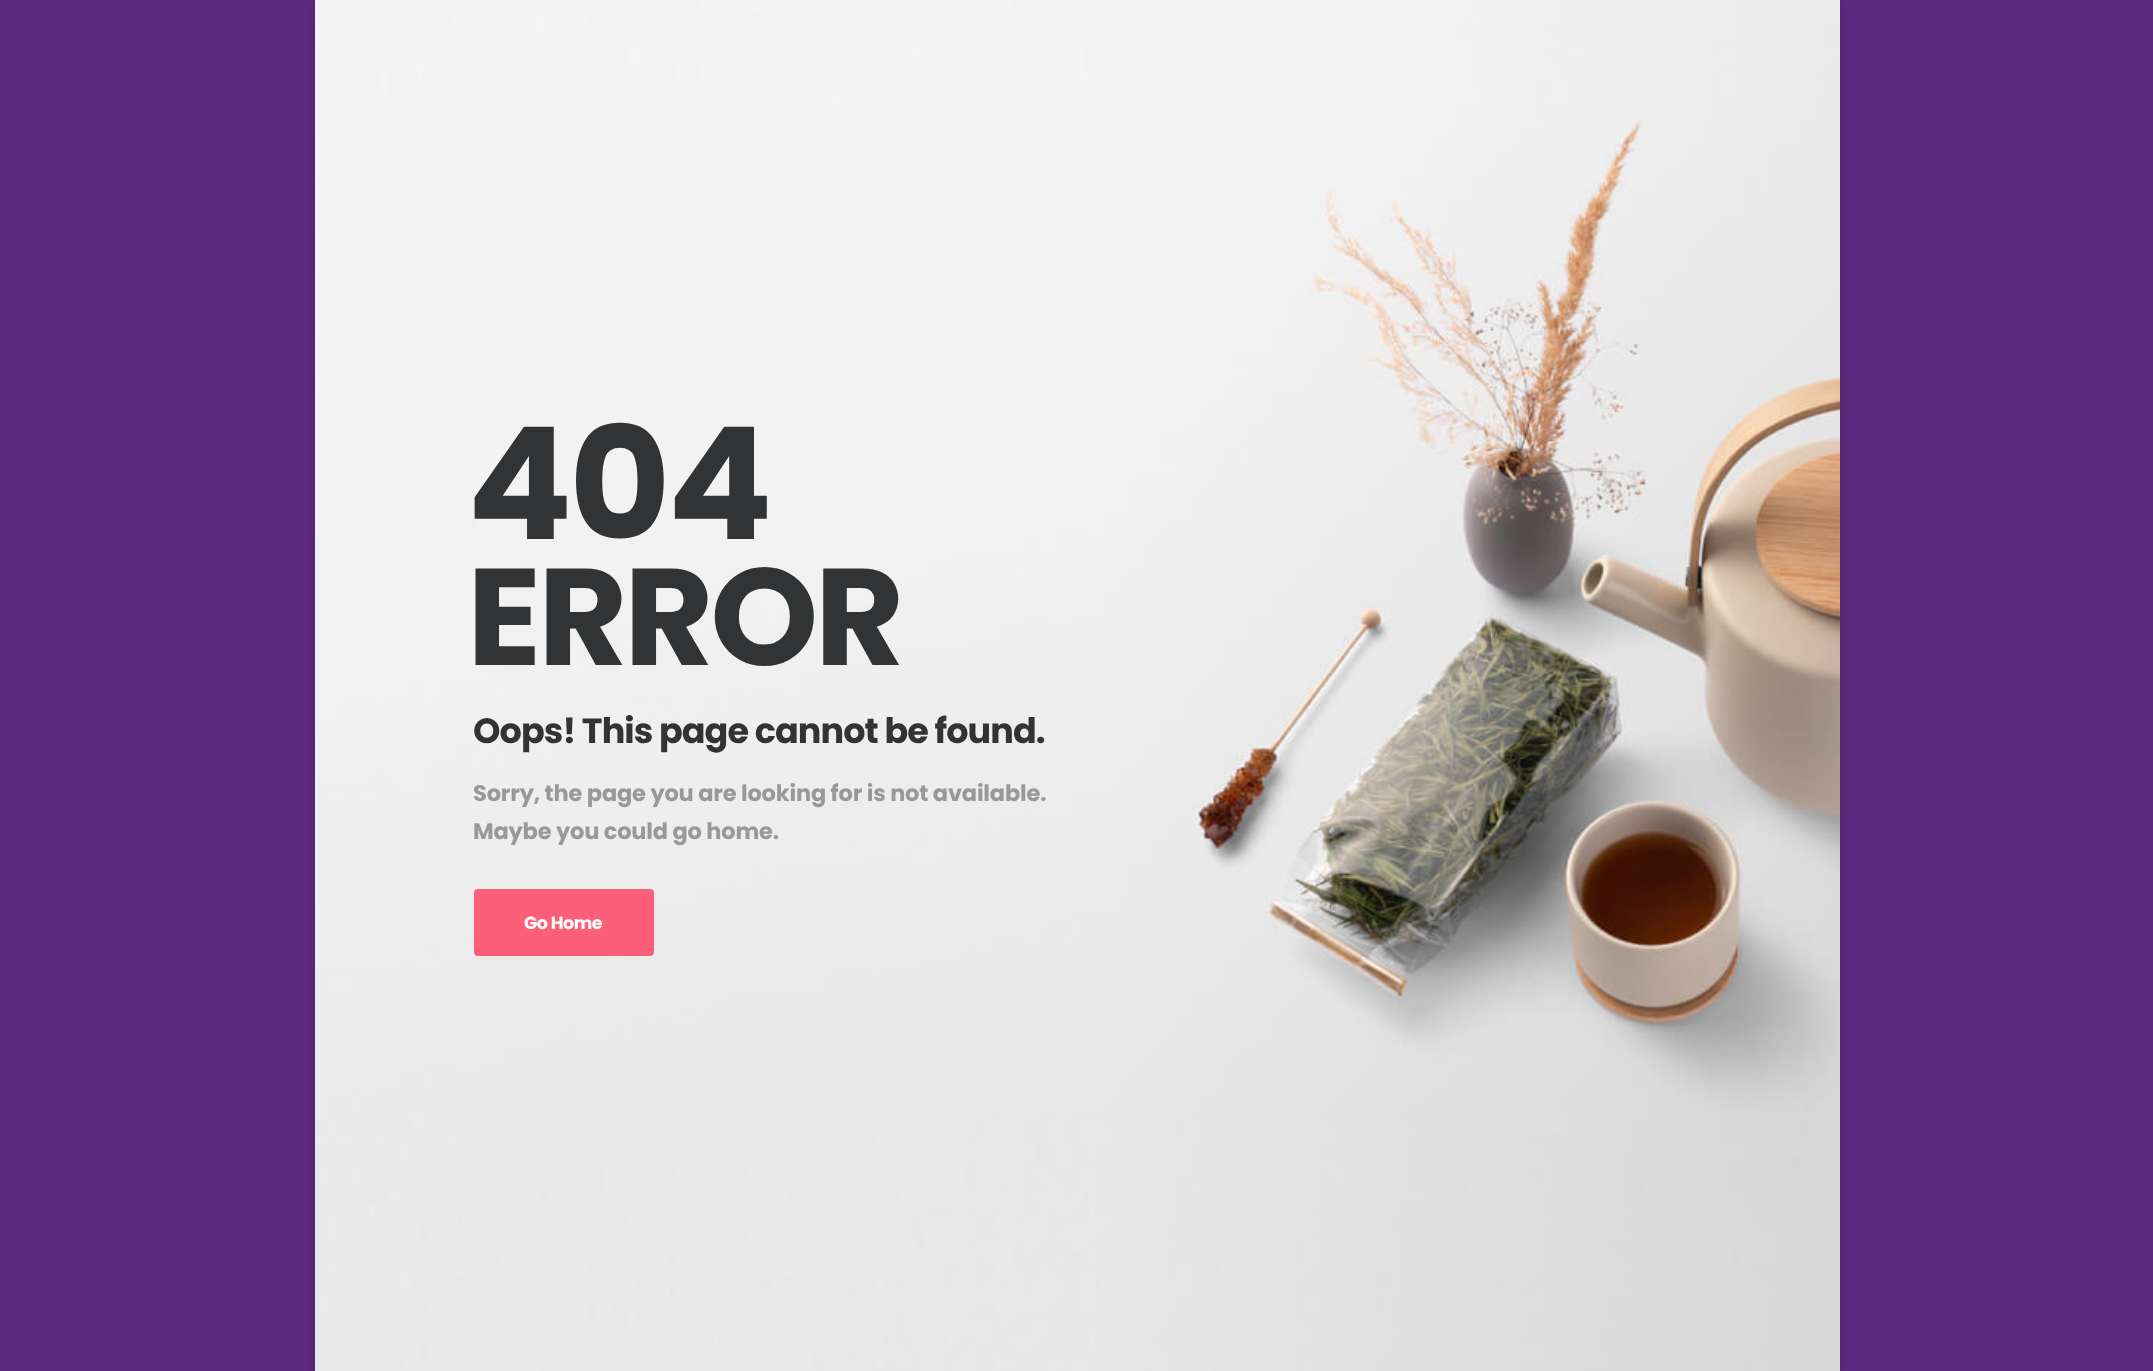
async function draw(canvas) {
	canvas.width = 2153;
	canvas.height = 1371;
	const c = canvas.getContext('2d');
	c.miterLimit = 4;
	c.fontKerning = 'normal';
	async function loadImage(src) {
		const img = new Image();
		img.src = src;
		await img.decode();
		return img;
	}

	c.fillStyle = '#5c2b81';
	c.fillRect(0, 0, 2153, 1371);
	c.fillStyle = '#0000003b';
	c.filter = 'blur(4px)';
	c.beginPath();
	c.rect(315, 4, 1525, 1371);
	c.fill();
	c.filter = 'none';
	c.drawImage(await loadImage('img1.png'), 315, 0, 1525, 1371);
	c.letterSpacing = '-3.5px';
	c.font = 'bold 156px Poppins';
	c.fillStyle = '#323334';
	c.fillText('404', 467, 539);
	c.font = 'bold 137.5px Poppins';
	c.fillText('ERROR', 467, 665);
	c.letterSpacing = '-0.9px';
	c.font = 'bold 35px Poppins';
	c.fillText('Oops! This page cannot be found.', 473, 743);
	c.letterSpacing = '-0.18px';
	c.font = 'bold 22.5px Poppins';
	c.fillStyle = '#999';
	c.fillText('Sorry, the page you are looking for is not available.', 473, 801);
	c.fillText('Maybe you could go home.', 473, 839);
	c.fillStyle = '#fe5f78';
	c.beginPath();
	c.roundRect(475.5, 890.5, 177, 64, 2.5);
	c.fill();
	c.strokeStyle = '#fe5f78';
	c.lineWidth = 3;
	c.stroke();
	c.letterSpacing = '-0.5px';
	c.font = 'bold 17.5px Poppins';
	c.fillStyle = '#fff';
	c.fillText('Go Home', 524, 929);
}

draw(document.querySelector('canvas'));
